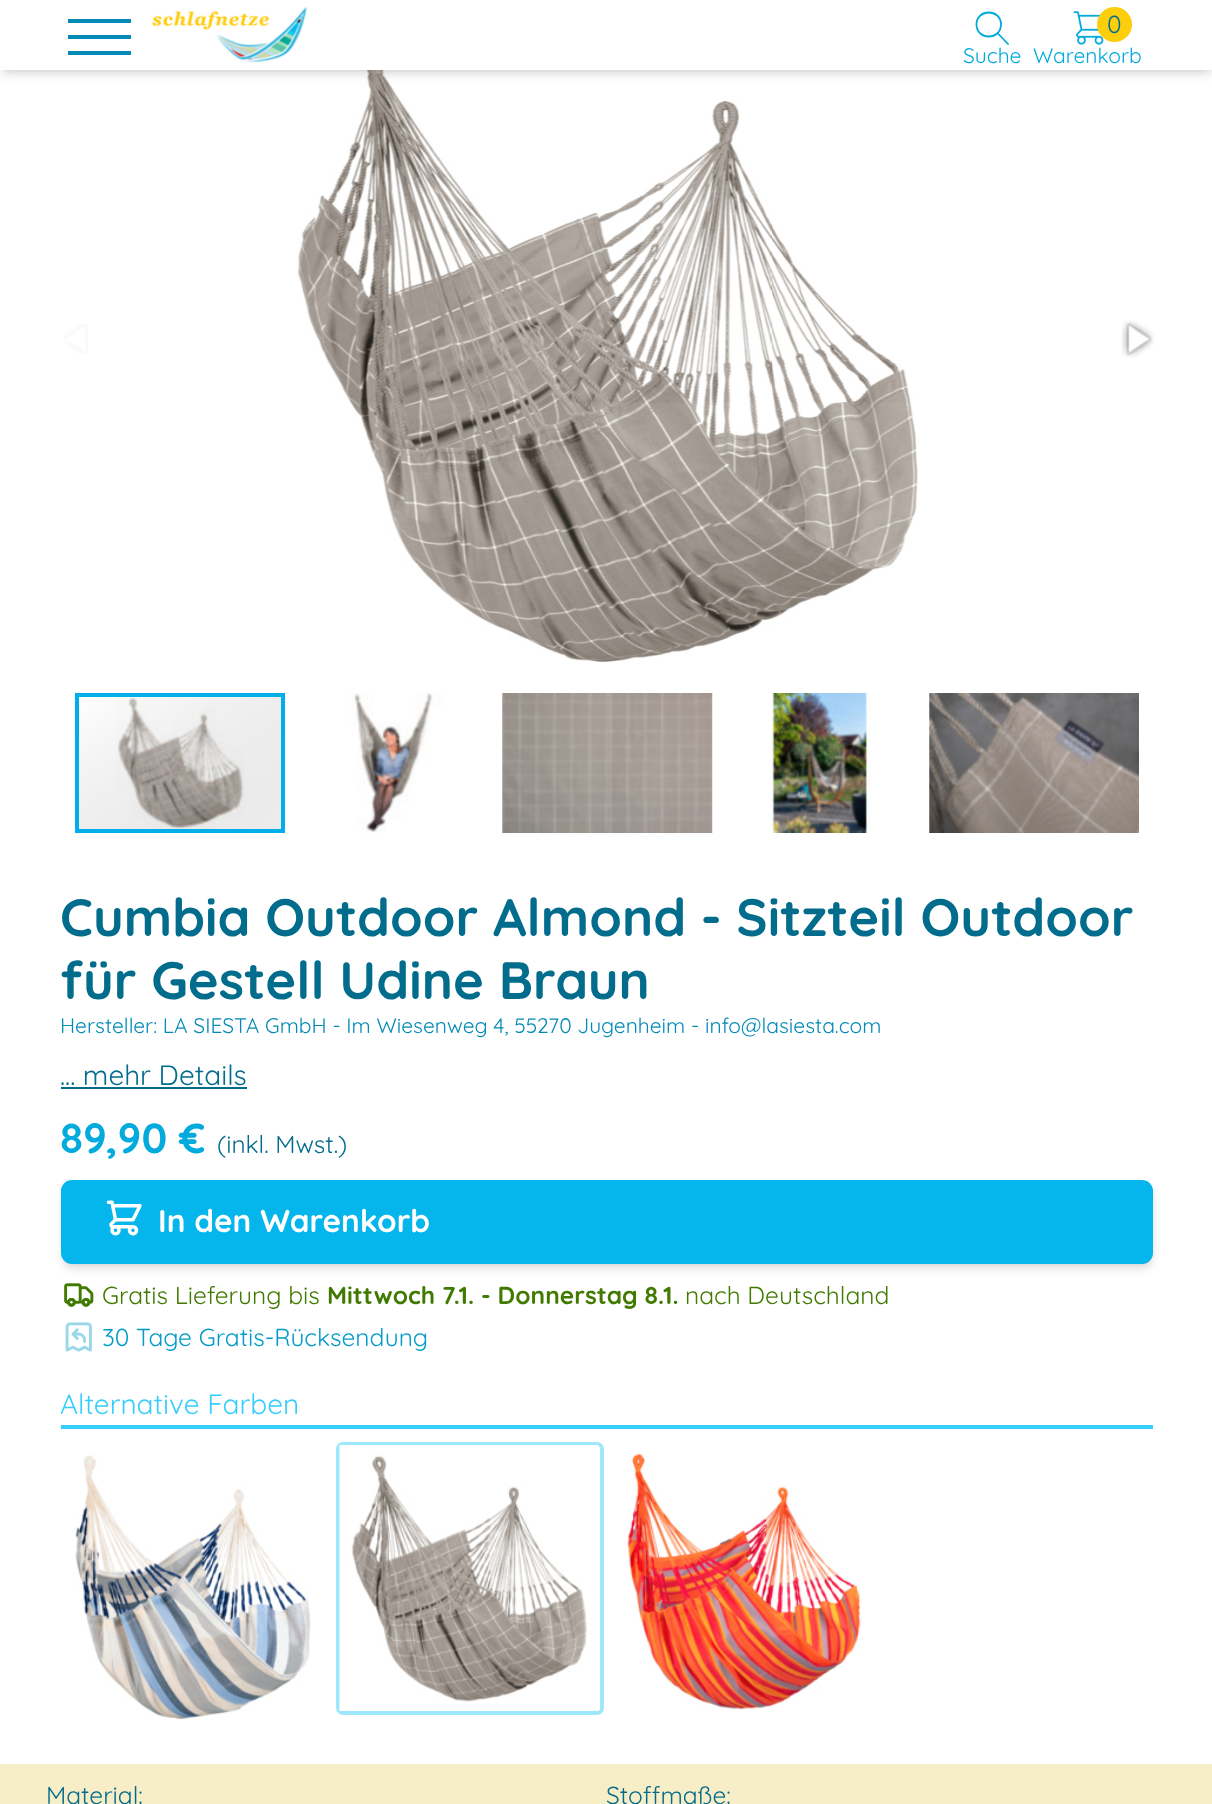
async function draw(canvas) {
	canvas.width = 1212;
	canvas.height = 1804;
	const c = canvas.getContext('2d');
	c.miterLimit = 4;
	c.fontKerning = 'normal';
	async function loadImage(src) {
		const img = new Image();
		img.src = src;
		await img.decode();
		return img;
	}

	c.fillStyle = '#f7eec7';
	c.fillRect(0, 0, 1212, 1804);
	c.fillStyle = '#fff';
	c.fillRect(0, 70, 1212, 1694);
	c.drawImage(await loadImage('img4.png'), 297, 70, 621, 593);
	c.fillStyle = '#0000001a';
	c.filter = 'blur(3.5px)';
	c.beginPath();
	c.rect(4, 7, 1205, 63);
	c.fill();
	c.filter = 'none';
	c.filter = 'blur(5px)';
	c.beginPath();
	c.rect(2, 9, 1209, 66);
	c.fill();
	c.filter = 'none';
	for (const [x, y, w, h, color] of [
		[0, 0, 1212, 70, '#fff'],
		[68, 35, 63, 4, '#038bb5'],
		[68, 19, 63, 4, '#038bb5'],
		[68, 51, 63, 4, '#038bb5'],
	]) {
		c.fillStyle = color;
		c.fillRect(x, y, w, h);
	}
	c.drawImage(await loadImage('img1.png'), 151, 6, 156, 57);
	c.beginPath();
	c.moveTo(1008, 44);
	c.lineTo(997.5, 33);
	c.moveTo(1001, 24.5);
	c.bezierCurveTo(1001, 40.5, 976.5, 40.5, 976.5, 24.5);
	c.bezierCurveTo(976.5, 8.5, 1001, 8.5, 1001, 24.5);
	c.closePath();
	c.strokeStyle = '#03aadd';
	c.lineWidth = 1.8;
	c.lineCap = 'round';
	c.lineJoin = 'round';
	c.stroke();
	c.font = '300 21px Quicksand';
	c.fillStyle = '#03aadd';
	c.fillText('Suche', 963, 63);
	c.drawImage(await loadImage('img2.png'), 1073, 11, 31, 34);
	c.fillStyle = '#fdce0c';
	c.beginPath();
	c.arc(1114.5, 24.5, 17.5, 0, 2 * Math.PI);
	c.fill();
	c.font = '300 24.5px Quicksand';
	c.fillStyle = '#026c8d';
	c.fillText('0', 1107, 33);
	c.font = '300 21px Quicksand';
	c.fillStyle = '#03aadd';
	c.fillText('Warenkorb', 1033, 63);
	c.drawImage(await loadImage('img3.png'), 64, 324, 24, 30);
	c.drawImage(await loadImage('img5.png'), 1121, 320, 33, 38);
	c.drawImage(await loadImage('img10.png'), 79, 697, 202, 132);
	c.strokeStyle = '#00afea';
	c.lineWidth = 4;
	c.lineJoin = 'miter';
	c.strokeRect(77, 695, 206, 136);
	c.drawImage(await loadImage('img6.png'), 289, 693, 210, 140);
	c.drawImage(await loadImage('img7.png'), 502, 693, 211, 140);
	c.drawImage(await loadImage('img8.png'), 716, 693, 210, 140);
	c.drawImage(await loadImage('img9.png'), 929, 693, 210, 140);
	c.font = '300 52.5px "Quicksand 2"';
	c.fillStyle = '#026c8d';
	c.fillText('Cumbia Outdoor Almond - Sitzteil Outdoor', 60, 936);
	c.fillText('für Gestell Udine Braun', 60, 999);
	c.font = '300 21px Quicksand';
	c.fillStyle = '#038bb5';
	c.fillText('Hersteller: LA SIESTA GmbH - Im Wiesenweg 4, 55270 Jugenheim - info@lasiesta.com', 60, 1033);
	c.font = '300 28px Quicksand';
	c.fillStyle = '#026c8d';
	c.fillText('... mehr Details', 60, 1085);
	c.fillRect(61, 1087, 186, 2);
	c.font = '300 42px "Quicksand 2"';
	c.fillStyle = '#03aadd';
	c.fillText('89,90 €', 60, 1153);
	c.font = '300 24.5px Quicksand';
	c.fillStyle = '#026c8d';
	c.fillText('(inkl. Mwst.)', 217, 1153);
	c.fillStyle = '#0000001a';
	c.filter = 'blur(3.5px)';
	c.beginPath();
	c.roundRect(65, 1187, 1085, 77, 7);
	c.fill();
	c.filter = 'none';
	c.filter = 'blur(5px)';
	c.beginPath();
	c.roundRect(63, 1188, 1089, 81, 9);
	c.fill();
	c.filter = 'none';
	c.fillStyle = '#04b6ec';
	c.beginPath();
	c.roundRect(61, 1180, 1092, 84, 11);
	c.fill();
	c.drawImage(await loadImage('img11.png'), 106, 1200, 36, 36);
	c.font = '300 31.5px "Quicksand 2"';
	c.fillStyle = '#fff';
	c.fillText('In den Warenkorb', 158, 1232);
	c.drawImage(await loadImage('img12.png'), 64, 1283, 30, 24);
	c.font = '300 24.5px Quicksand';
	c.fillStyle = '#417a00';
	c.fillText('Gratis Lieferung bis', 102, 1304);
	c.font = '300 24.5px "Quicksand 2"';
	c.fillText('Mittwoch 7.1. - Donnerstag 8.1.', 327, 1304);
	c.font = '300 24.5px Quicksand';
	c.fillText('nach Deutschland', 685, 1304);
	c.drawImage(await loadImage('img13.png'), 65, 1322, 27, 30);
	c.fillStyle = '#039bc9';
	c.fillText('30 Tage Gratis-Rücksendung', 102, 1346);
	c.fillStyle = '#36cefc';
	c.fillRect(61, 1425, 1092, 4);
	c.font = '300 28px Quicksand';
	c.fillText('Alternative Farben', 60, 1414);
	c.drawImage(await loadImage('img14.png'), 75, 1455, 236, 265);
	c.beginPath();
	c.roundRect(338, 1444, 264, 269, 5);
	c.strokeStyle = '#9ee7fd';
	c.stroke();
	c.drawImage(await loadImage('img15.png'), 339, 1445, 260, 266);
	c.drawImage(await loadImage('img16.png'), 627, 1453, 234, 257);
	c.font = '300 24.5px Quicksand';
	c.fillStyle = '#026c8d';
	c.fillText('Material:', 46, 1804);
	c.fillText('Stoffmaße:', 606, 1804);
}

draw(document.querySelector('canvas'));
